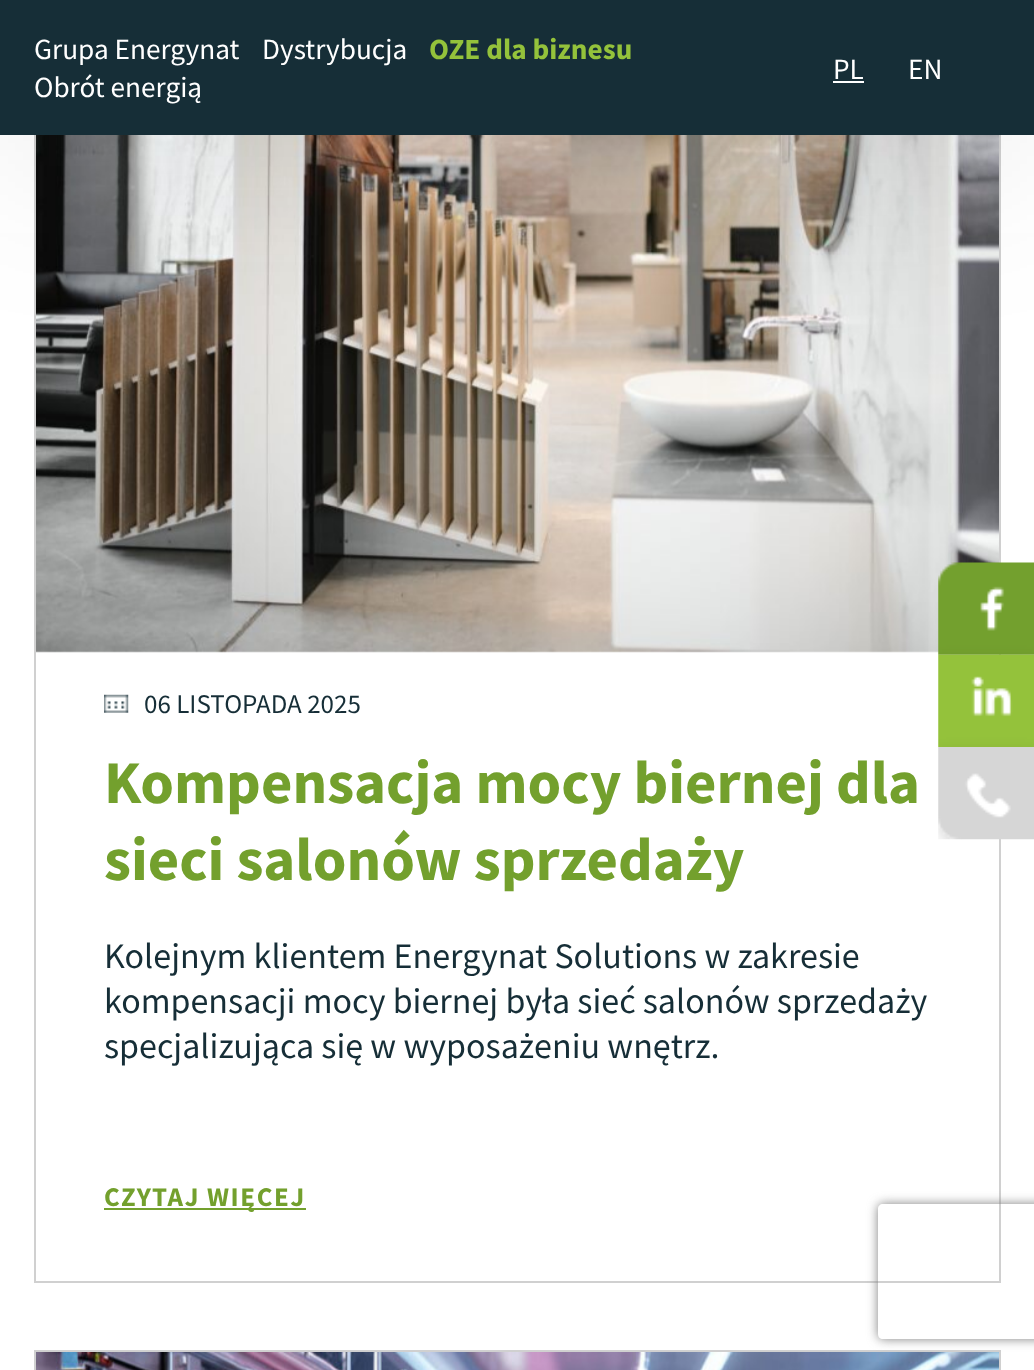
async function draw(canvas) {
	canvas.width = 1034;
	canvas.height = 1370;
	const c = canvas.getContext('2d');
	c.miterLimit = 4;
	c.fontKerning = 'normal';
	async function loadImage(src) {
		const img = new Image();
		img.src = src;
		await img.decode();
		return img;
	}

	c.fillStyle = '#fff';
	c.fillRect(0, 0, 1034, 1370);
	c.strokeStyle = '#d0d0d0';
	c.lineWidth = 2;
	c.strokeRect(35, -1, 965, 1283);
	c.drawImage(await loadImage('img1.png'), 36, 135, 963, 518);
	c.fillStyle = '#2828281f';
	c.filter = 'blur(93.5px)';
	c.beginPath();
	c.rect(0, 11, 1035, 135);
	c.fill();
	c.filter = 'none';
	c.fillStyle = '#162e37';
	c.fillRect(0, 0, 1034, 135);
	c.font = '29.25px Source Sans Pro';
	c.fillStyle = '#fff';
	c.fillText('Grupa Energynat', 34, 59);
	c.fillText('Dystrybucja', 262, 59);
	c.font = 'bold 29.25px Source Sans Pro';
	c.fillStyle = '#94c23b';
	c.fillText('OZE dla biznesu', 429, 59);
	c.font = '29.25px Source Sans Pro';
	c.fillStyle = '#fff';
	c.fillText('Obrót energią', 34, 97);
	c.fillText('PL', 833, 79);
	c.fillRect(833, 81, 31, 2);
	c.fillText('EN', 908, 79);
	c.drawImage(await loadImage('img2.png'), 104, 694, 25, 19);
	c.font = '27px Source Sans Pro';
	c.fillStyle = '#162e37';
	c.fillText('06 LISTOPADA 2025', 144, 713);
	c.font = 'bold 60.75px Source Sans Pro';
	c.fillStyle = '#73a02d';
	c.fillText('Kompensacja mocy biernej dla', 104, 803);
	c.fillText('sieci salonów sprzedaży', 104, 880);
	c.font = '36px Source Sans Pro';
	c.fillStyle = '#162e37';
	for (const [text, x, y] of [
		['Kolejnym klientem Energynat Solutions w zakresie', 104, 968],
		['kompensacji mocy biernej była sieć salonów sprzedaży', 104, 1013],
		['specjalizująca się w wyposażeniu wnętrz.', 104, 1058],
	]) {
		c.fillText(text, x, y);
	}
	c.fillStyle = '#73a02d';
	c.fillRect(104, 1208, 202, 2);
	c.letterSpacing = '1.6px';
	c.font = 'bold 27px Source Sans Pro';
	c.fillText('CZYTAJ WIĘCEJ', 104, 1206);
	c.strokeRect(35, 1351, 965, 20);
	c.drawImage(await loadImage('img3.png'), 36, 1352, 963, 18);
	c.drawImage(await loadImage('img4.png'), 938, 562, 96, 93);
	c.drawImage(await loadImage('img5.png'), 938, 654, 96, 93);
	c.drawImage(await loadImage('img6.png'), 938, 747, 96, 93);
	c.save();
	c.beginPath();
	c.moveTo(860, 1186);
	c.lineTo(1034, 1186);
	c.lineTo(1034, 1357);
	c.lineTo(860, 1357);
	c.closePath();
	c.moveTo(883, 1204);
	c.lineTo(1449, 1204);
	c.bezierCurveTo(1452, 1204, 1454, 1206, 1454, 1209);
	c.lineTo(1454, 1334);
	c.bezierCurveTo(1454, 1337, 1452, 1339, 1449, 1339);
	c.lineTo(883, 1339);
	c.bezierCurveTo(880, 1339, 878, 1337, 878, 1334);
	c.lineTo(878, 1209);
	c.bezierCurveTo(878, 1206, 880, 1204, 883, 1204);
	c.closePath();
	c.clip('evenodd');
	c.fillStyle = '#808080';
	c.filter = 'blur(5.5px)';
	c.beginPath();
	c.roundRect(878, 1204, 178, 135, 5);
	c.fill();
	c.filter = 'none';
	c.restore();
}

draw(document.querySelector('canvas'));
